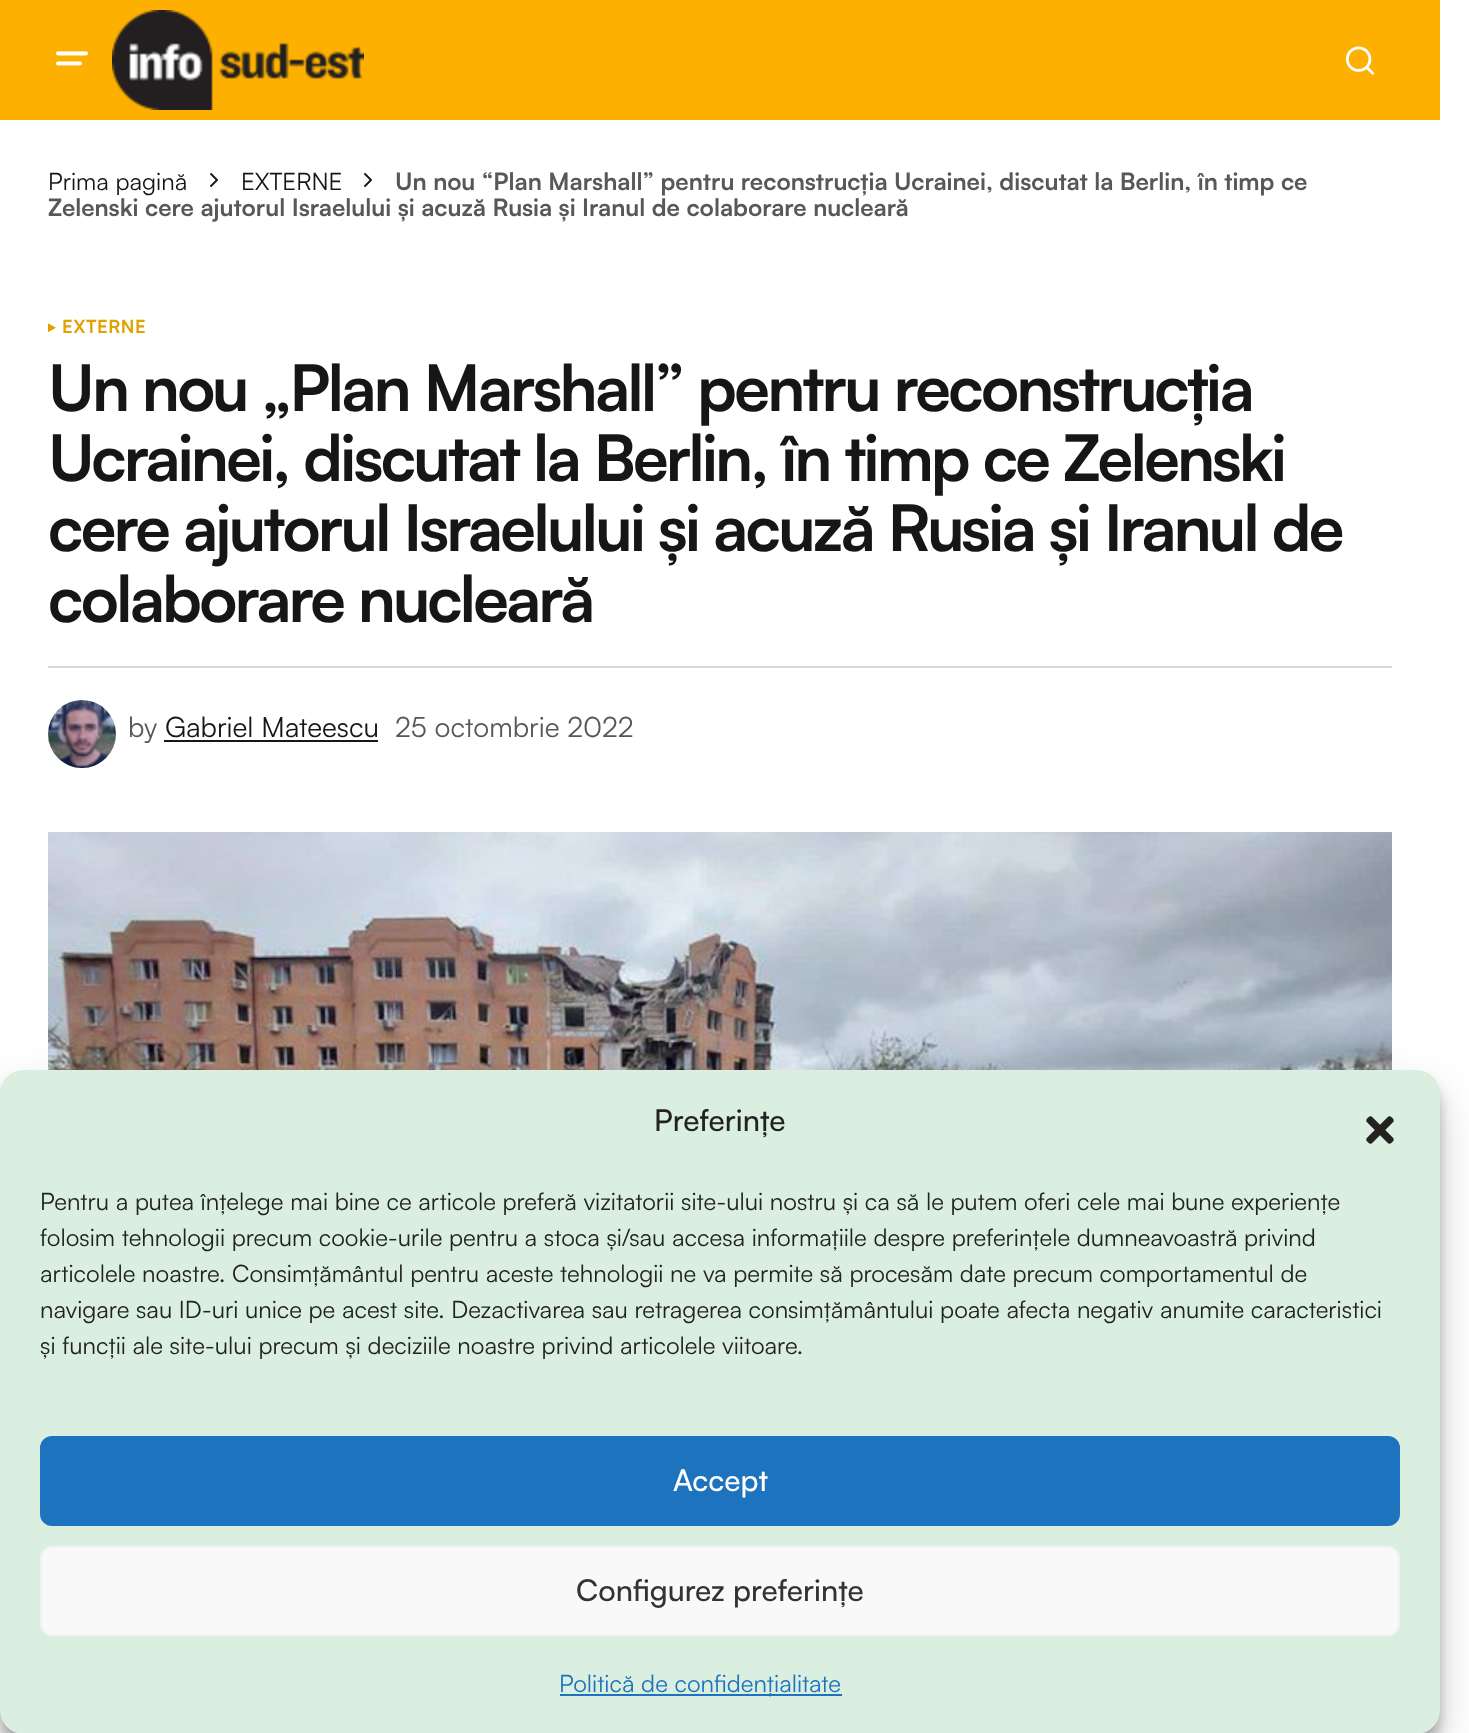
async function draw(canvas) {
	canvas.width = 1469;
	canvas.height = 1733;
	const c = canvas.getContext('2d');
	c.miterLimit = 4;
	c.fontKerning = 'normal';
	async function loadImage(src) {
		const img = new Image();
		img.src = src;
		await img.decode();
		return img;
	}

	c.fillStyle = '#fff';
	c.fillRect(0, 0, 1469, 1733);
	c.fillStyle = '#fdb000';
	c.fillRect(0, 0, 1440, 120);
	c.drawImage(await loadImage('img1.png'), 56, 51, 32, 15);
	c.drawImage(await loadImage('img2.png'), 112, 10, 252, 100);
	c.drawImage(await loadImage('img3.png'), 1345, 46, 30, 29);
	c.font = '24px Satoshi';
	c.fillStyle = '#161616';
	c.fillText('Prima pagină', 48, 190);
	c.drawImage(await loadImage('img4.png'), 210, 173, 8, 14);
	c.fillText('EXTERNE', 241, 190);
	c.drawImage(await loadImage('img4.png'), 364, 173, 8, 14);
	c.font = 'bold 24px Satoshi';
	c.fillStyle = '#585858';
	c.fillText('Un nou “Plan Marshall” pentru reconstrucția Ucrainei, discutat la Berlin, în timp ce', 395, 190);
	c.fillText('Zelenski cere ajutorul Israelului și acuză Rusia și Iranul de colaborare nucleară', 48, 216);
	c.drawImage(await loadImage('img5.png'), 48, 323, 8, 9);
	c.letterSpacing = '0.5px';
	c.font = 'bold 18px Satoshi';
	c.fillStyle = '#e2a102';
	c.fillText('EXTERNE', 62, 333);
	c.letterSpacing = '-2.55px';
	c.font = 'bold 64px Satoshi';
	c.fillStyle = '#161616';
	for (const [text, x, y] of [
		['Un nou „Plan Marshall” pentru reconstrucția', 48, 411],
		['Ucrainei, discutat la Berlin, în timp ce Zelenski', 48, 481],
		['cere ajutorul Israelului și acuză Rusia și Iranul de', 48, 551],
		['colaborare nucleară', 48, 622],
	]) {
		c.fillText(text, x, y);
	}
	c.fillStyle = '#d9d9d9';
	c.fillRect(48, 666, 1344, 2);
	c.drawImage(await loadImage('img6.png'), 48, 700, 68, 68);
	c.letterSpacing = '0px';
	c.font = '28px Satoshi';
	c.fillStyle = '#585858';
	c.fillText('by', 128, 737);
	c.fillStyle = '#161616';
	c.fillRect(164, 740, 214, 2);
	c.fillText('Gabriel Mateescu', 165, 737);
	c.fillStyle = '#585858';
	c.fillText('25 octombrie 2022', 395, 737);
	c.drawImage(await loadImage('img7.png'), 48, 832, 1344, 238);
	c.fillStyle = '#0000003b';
	c.filter = 'blur(6px)';
	c.beginPath();
	c.roundRect(0, 1082, 1440, 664, 24);
	c.fill();
	c.filter = 'none';
	c.fillStyle = '#00000030';
	c.filter = 'blur(20px)';
	c.beginPath();
	c.roundRect(0, 1090, 1440, 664, 24);
	c.fill();
	c.filter = 'none';
	c.fillStyle = '#daefe0';
	c.beginPath();
	c.roundRect(0, 1070, 1440, 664, 24);
	c.fill();
	c.font = '500 30px Satoshi';
	c.fillStyle = '#222';
	c.fillText('Preferințe', 654, 1131);
	c.drawImage(await loadImage('img8.png'), 1366, 1116, 28, 28);
	c.font = '24px Satoshi';
	for (const [text, x, y] of [
		['Pentru a putea înțelege mai bine ce articole preferă vizitatorii site-ului nostru și ca să le putem oferi cele mai bune experiențe', 40, 1210],
		['folosim tehnologii precum cookie-urile pentru a stoca și/sau accesa informațiile despre preferințele dumneavoastră privind', 40, 1246],
		['articolele noastre. Consimțământul pentru aceste tehnologii ne va permite să procesăm date precum comportamentul de', 40, 1282],
		['navigare sau ID-uri unice pe acest site. Dezactivarea sau retragerea consimțământului poate afecta negativ anumite caracteristici', 40, 1318],
		['și funcții ale site-ului precum și deciziile noastre privind articolele viitoare.', 40, 1354],
	]) {
		c.fillText(text, x, y);
	}
	c.fillStyle = '#1e73be';
	c.beginPath();
	c.roundRect(41, 1437, 1358, 88, 11);
	c.fill();
	c.strokeStyle = '#1e73be';
	c.lineWidth = 2;
	c.stroke();
	c.font = '500 30px Satoshi';
	c.fillStyle = '#fff';
	c.fillText('Accept', 673, 1491);
	c.fillStyle = '#f9f9f9';
	c.beginPath();
	c.roundRect(41, 1547, 1358, 88, 11);
	c.fill();
	c.strokeStyle = '#f2f2f2';
	c.stroke();
	c.fillStyle = '#333';
	c.fillText('Configurez preferințe', 576, 1601);
	c.fillStyle = '#1e73be';
	c.fillRect(560, 1694, 282, 2);
	c.font = '24px Satoshi';
	c.fillText('Politică de confidențialitate', 559, 1692);
}

draw(document.querySelector('canvas'));
